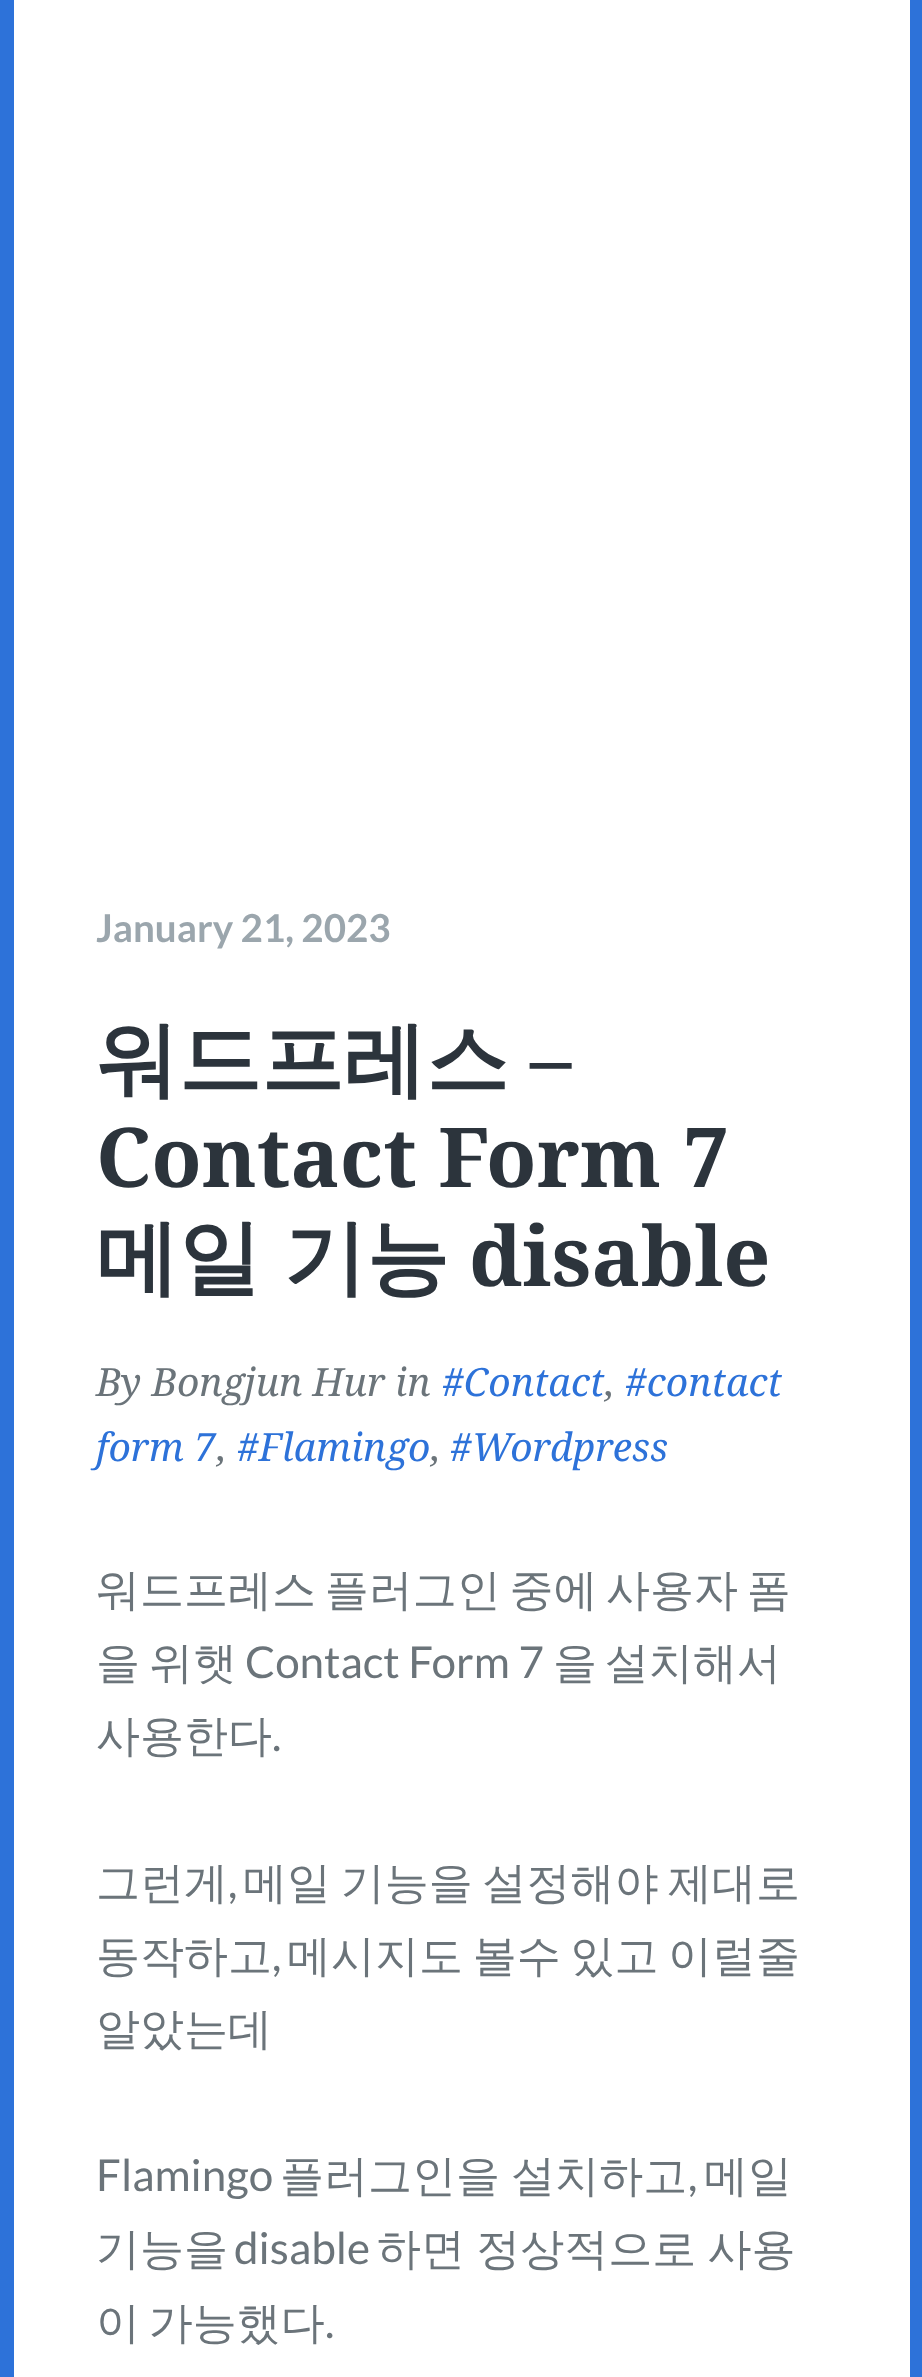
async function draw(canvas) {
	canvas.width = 922;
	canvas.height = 2377;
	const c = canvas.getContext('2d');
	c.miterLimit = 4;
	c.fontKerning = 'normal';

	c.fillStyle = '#fff';
	c.fillRect(0, 0, 922, 2377);
	c.strokeStyle = '#2d72d9';
	c.lineWidth = 14;
	c.strokeRect(7, -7, 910, 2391);
	c.font = 'bold 38.5px Lato';
	c.fillStyle = '#9ba6ad';
	c.fillText('January 21, 2023', 96, 942);
	c.font = 'bold 82.5px WenQuanYi Zen Hei';
	c.fillStyle = '#2c343c';
	c.fillText('워드프레스', 96, 1088);
	c.font = 'bold 82.5px Noto Serif';
	c.fillText('–', 530, 1088);
	c.fillText('Contact Form 7', 96, 1187);
	c.wordSpacing = '-2px';
	c.font = 'bold 82.5px WenQuanYi Zen Hei';
	c.fillText('메일 기능', 96, 1286);
	c.wordSpacing = '0px';
	c.font = 'bold 82.5px Noto Serif';
	c.fillText('disable', 469, 1286);
	c.font = 'italic 39px Noto Serif';
	c.fillStyle = '#6b747a';
	c.fillText('By Bongjun Hur in', 96, 1396);
	c.fillStyle = '#2d72d9';
	c.fillText('#Contact', 442, 1396);
	c.fillStyle = '#6b747a';
	c.fillText(',', 605, 1396);
	c.fillStyle = '#2d72d9';
	c.fillText('#contact', 625, 1396);
	c.fillText('form 7', 96, 1461);
	c.fillStyle = '#6b747a';
	c.fillText(',', 217, 1461);
	c.fillStyle = '#2d72d9';
	c.fillText('#Flamingo', 237, 1461);
	c.fillStyle = '#6b747a';
	c.fillText(',', 431, 1461);
	c.fillStyle = '#2d72d9';
	c.fillText('#Wordpress', 450, 1461);
	c.wordSpacing = '-4.5px';
	c.font = '500 44px WenQuanYi Zen Hei';
	c.fillStyle = '#6b747a';
	c.fillText('워드프레스 플러그인 중에 사용자 폼', 96, 1605);
	c.wordSpacing = '0px';
	c.fillText('을', 96, 1678);
	c.fillText('위햇', 149, 1678);
	c.font = '44px Lato';
	c.fillText('Contact Form 7', 245, 1678);
	c.font = '500 44px WenQuanYi Zen Hei';
	for (const [text, x, y] of [
		['을', 553, 1678],
		['설치해서', 605, 1678],
		['사용한다', 96, 1751],
	]) {
		c.fillText(text, x, y);
	}
	c.font = '44px Lato';
	c.fillText('.', 272, 1751);
	c.font = '500 44px WenQuanYi Zen Hei';
	c.fillText('그런게', 96, 1898);
	c.font = '44px Lato';
	c.fillText(',', 228, 1898);
	c.wordSpacing = '-3.5px';
	c.font = '500 44px WenQuanYi Zen Hei';
	c.fillText('메일 기능을 설정해야 제대로', 243, 1898);
	c.wordSpacing = '0px';
	c.fillText('동작하고', 96, 1971);
	c.font = '44px Lato';
	c.fillText(',', 272, 1971);
	c.wordSpacing = '-3.5px';
	c.font = '500 44px WenQuanYi Zen Hei';
	c.fillText('메시지도 볼수 있고 이럴줄', 287, 1971);
	c.wordSpacing = '0px';
	c.fillText('알았는데', 96, 2044);
	c.font = '44px Lato';
	c.fillText('Flamingo', 96, 2191);
	c.wordSpacing = '-2px';
	c.font = '500 44px WenQuanYi Zen Hei';
	c.fillText('플러그인을 설치하고', 280, 2191);
	c.wordSpacing = '0px';
	c.font = '44px Lato';
	c.fillText(',', 688, 2191);
	c.font = '500 44px WenQuanYi Zen Hei';
	c.fillText('메일', 704, 2191);
	c.fillText('기능을', 96, 2264);
	c.font = '44px Lato';
	c.fillText('disable', 234, 2264);
	c.wordSpacing = '-2px';
	c.font = '500 44px WenQuanYi Zen Hei';
	c.fillText('하면 정상적으로 사용', 377, 2264);
	c.wordSpacing = '-4.5px';
	c.fillText('이 가능했다', 96, 2338);
	c.wordSpacing = '0px';
	c.font = '44px Lato';
	c.fillText('.', 325, 2338);
}

draw(document.querySelector('canvas'));
